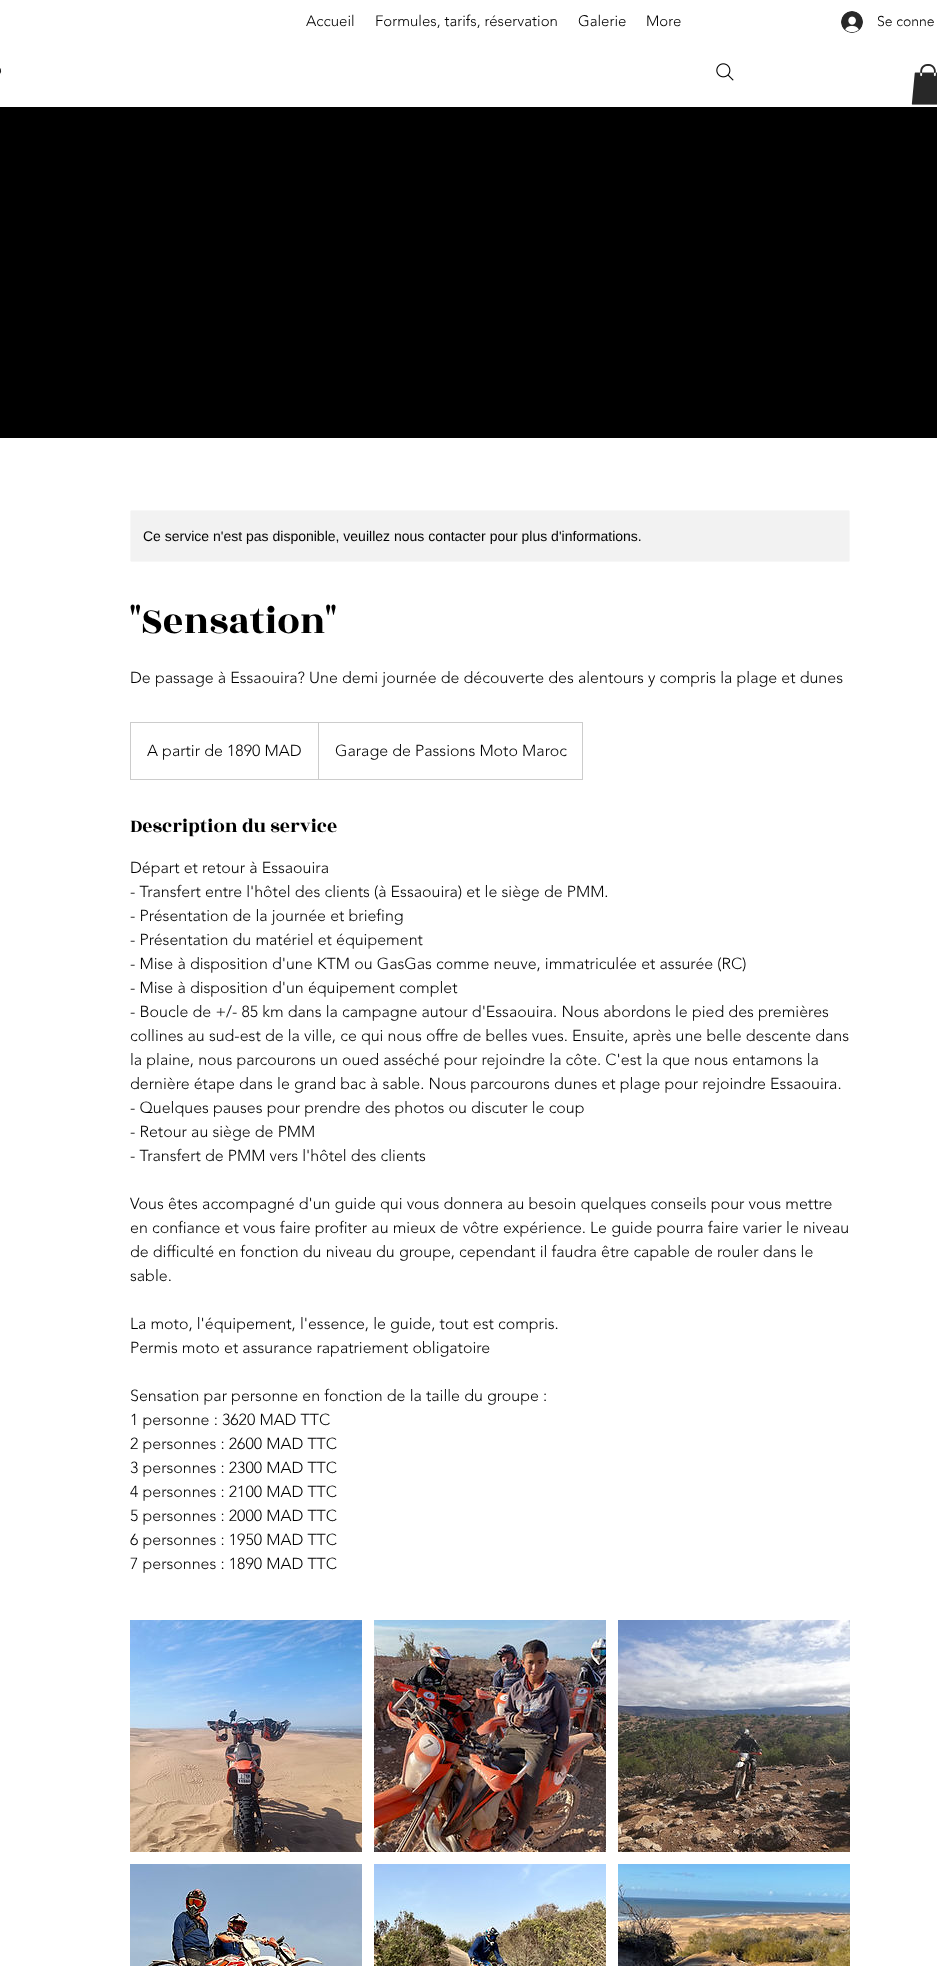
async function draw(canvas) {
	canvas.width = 937;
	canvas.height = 1966;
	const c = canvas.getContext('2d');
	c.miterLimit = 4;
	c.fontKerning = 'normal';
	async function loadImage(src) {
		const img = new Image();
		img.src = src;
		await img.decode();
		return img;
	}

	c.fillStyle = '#fff';
	c.fillRect(0, 0, 937, 1966);
	c.font = '300 15px "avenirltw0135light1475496"';
	c.fillStyle = '#000';
	for (const [text, x, y] of [
		['Accueil', 306, 26],
		['Formules, tarifs, réservation', 375, 26],
		['Galerie', 578, 26],
		['More', 646, 26],
	]) {
		c.fillText(text, x, y);
	}
	c.drawImage(await loadImage('img1.png'), 841, 11, 22, 22);
	c.font = '300 14px "avenirltw0135light1475496"';
	c.fillText('Se conne', 877, 26);
	c.drawImage(await loadImage('img2.png'), 0, 68, 2, 7);
	c.drawImage(await loadImage('img3.png'), 716, 63, 18, 18);
	c.drawImage(await loadImage('img4.png'), 911, 64, 26, 41);
	c.fillRect(0, 107, 937, 331);
	c.fillStyle = '#f2f2f2';
	c.beginPath();
	c.roundRect(130.5, 510.5, 719, 51, 1.5);
	c.fill();
	c.strokeStyle = '#f7f7f7';
	c.stroke();
	c.font = '14px Liberation Sans';
	c.fillStyle = '#000';
	c.fillText('Ce service n\'est pas disponible, veuillez nous contacter pour plus d\'informations.', 143, 541);
	c.font = '40px Rozha One';
	c.fillText('"Sensation"', 130, 633);
	c.font = '300 16px "avenirltw0135light1475496"';
	c.fillText('De passage à Essaouira? Une demi journée de découverte des alentours y compris la plage et dunes', 130, 683);
	c.strokeStyle = '#ccc';
	c.strokeRect(130.5, 722.5, 452, 57);
	c.fillText('A partir de 1890 MAD', 147, 756);
	c.fillStyle = '#ccc';
	c.beginPath();
	c.moveTo(318, 779);
	c.lineTo(318, 722);
	c.lineTo(319, 723);
	c.lineTo(319, 779);
	c.closePath();
	c.fill();
	c.fillStyle = '#000';
	c.fillText('Garage de Passions Moto Maroc', 335, 756);
	c.font = '20px Rozha One';
	c.fillText('Description du service', 130, 832);
	c.font = '300 16px "avenirltw0135light1475496"';
	for (const [text, x, y] of [
		['Départ et retour à Essaouira', 130, 873],
		['- Transfert entre l\'hôtel des clients (à Essaouira) et le siège de PMM.', 130, 897],
		['- Présentation de la journée et briefing', 130, 921],
		['- Présentation du matériel et équipement', 130, 945],
		['- Mise à disposition d\'une KTM ou GasGas comme neuve, immatriculée et assurée (RC)', 130, 969],
		['- Mise à disposition d\'un équipement complet', 130, 993],
		['- Boucle de +/- 85 km dans la campagne autour d\'Essaouira. Nous abordons le pied des premières', 130, 1017],
		['collines au sud-est de la ville, ce qui nous offre de belles vues. Ensuite, après une belle descente dans', 130, 1041],
		['la plaine, nous parcourons un oued asséché pour rejoindre la côte. C\'est la que nous entamons la', 130, 1065],
		['dernière étape dans le grand bac à sable. Nous parcourons dunes et plage pour rejoindre Essaouira.', 130, 1089],
		['- Quelques pauses pour prendre des photos ou discuter le coup', 130, 1113],
		['- Retour au siège de PMM', 130, 1137],
		['- Transfert de PMM vers l\'hôtel des clients', 130, 1161],
		['Vous êtes accompagné d\'un guide qui vous donnera au besoin quelques conseils pour vous mettre', 130, 1209],
		['en confiance et vous faire profiter au mieux de vôtre expérience. Le guide pourra faire varier le niveau', 130, 1233],
		['de difficulté en fonction du niveau du groupe, cependant il faudra être capable de rouler dans le', 130, 1257],
		['sable.', 130, 1281],
		['La moto, l\'équipement, l\'essence, le guide, tout est compris.', 130, 1329],
		['Permis moto et assurance rapatriement obligatoire', 130, 1353],
		['Sensation par personne en fonction de la taille du groupe :', 130, 1401],
		['1 personne : 3620 MAD TTC', 130, 1425],
		['2 personnes : 2600 MAD TTC', 130, 1449],
		['3 personnes : 2300 MAD TTC', 130, 1473],
		['4 personnes : 2100 MAD TTC', 130, 1497],
		['5 personnes : 2000 MAD TTC', 130, 1521],
		['6 personnes : 1950 MAD TTC', 130, 1545],
		['7 personnes : 1890 MAD TTC', 130, 1569],
	]) {
		c.fillText(text, x, y);
	}
	c.drawImage(await loadImage('img5.png'), 130, 1620, 232, 232);
	c.drawImage(await loadImage('img6.png'), 374, 1620, 232, 232);
	c.drawImage(await loadImage('img7.png'), 618, 1620, 232, 232);
	c.drawImage(await loadImage('img8.png'), 130, 1864, 232, 102);
	c.drawImage(await loadImage('img9.png'), 130, 1871, 223, 95);
	c.drawImage(await loadImage('img10.png'), 374, 1864, 232, 102);
	c.drawImage(await loadImage('img11.png'), 618, 1864, 232, 5);
	c.drawImage(await loadImage('img12.png'), 618, 1869, 232, 97);
}

draw(document.querySelector('canvas'));
